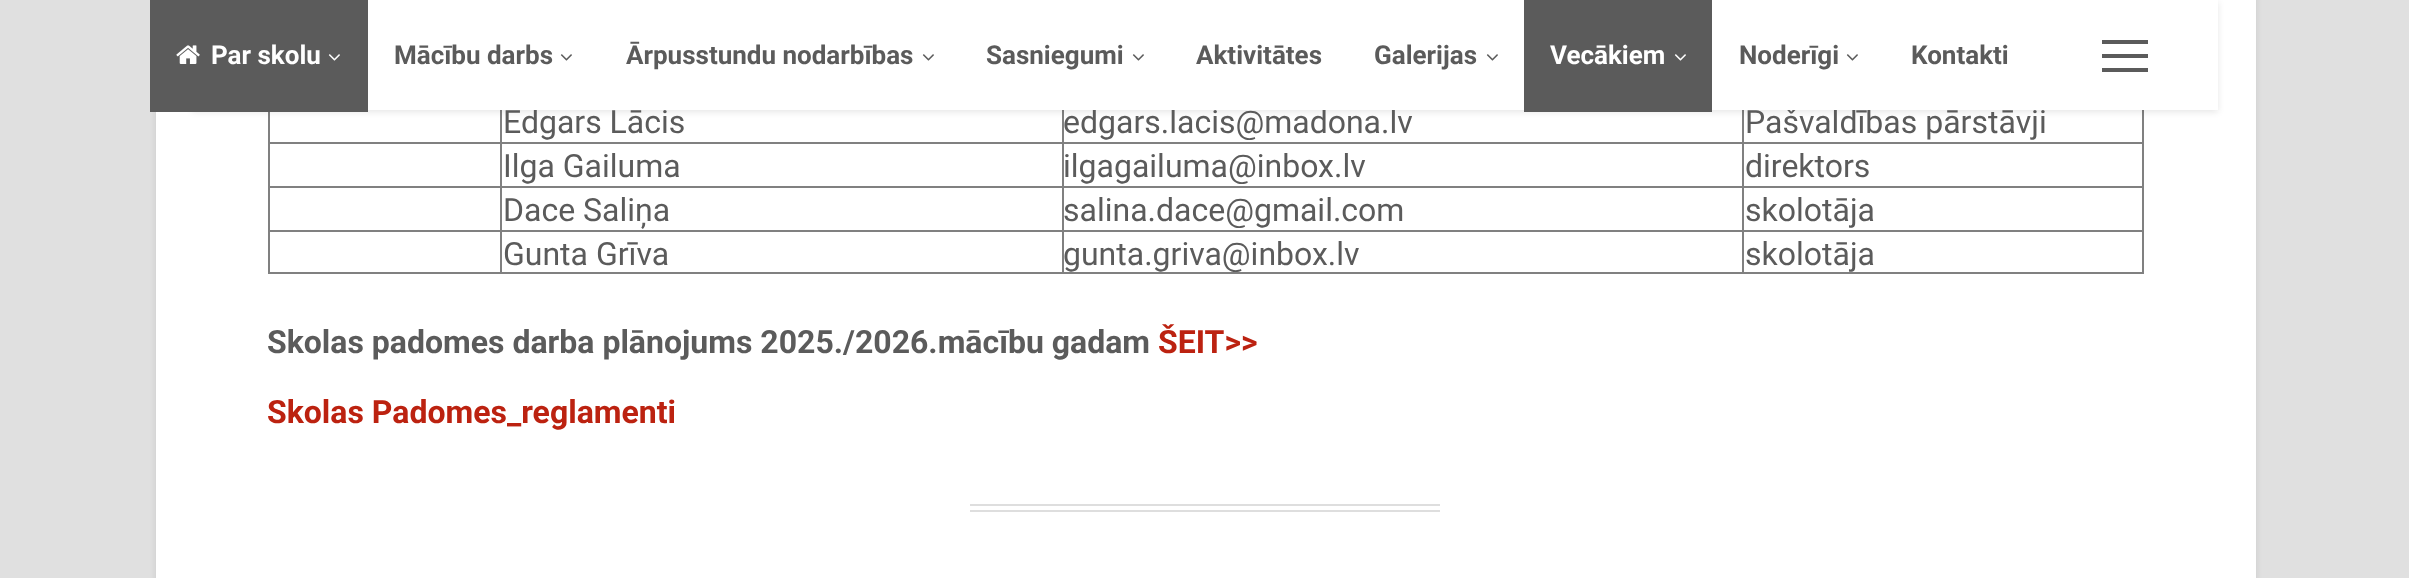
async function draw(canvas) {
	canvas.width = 2409;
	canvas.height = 578;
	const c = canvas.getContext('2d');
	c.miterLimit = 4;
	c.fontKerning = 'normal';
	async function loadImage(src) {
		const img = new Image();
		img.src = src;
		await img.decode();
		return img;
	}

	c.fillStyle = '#e0e0e0';
	c.fillRect(0, 0, 2409, 578);
	c.fillStyle = '#0d0d0d1a';
	c.filter = 'blur(3px)';
	c.beginPath();
	c.rect(156, -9, 2100, 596);
	c.fill();
	c.filter = 'none';
	for (const [x, y, w, h, color] of [
		[156, 0, 2100, 578, '#fff'],
		[2142, 110, 2, 164, '#808080'],
		[268, 272, 1876, 2, '#808080'],
		[268, 112, 2, 162, '#808080'],
		[1742, 142, 402, 2, '#808080'],
		[1742, 186, 402, 2, '#808080'],
		[1742, 230, 402, 2, '#808080'],
		[1742, 230, 2, 44, '#808080'],
		[1062, 230, 682, 2, '#808080'],
		[1742, 186, 2, 46, '#808080'],
		[1062, 186, 682, 2, '#808080'],
		[1742, 142, 2, 46, '#808080'],
		[1062, 142, 682, 2, '#808080'],
		[1062, 230, 2, 44, '#808080'],
		[500, 230, 564, 2, '#808080'],
		[1062, 186, 2, 46, '#808080'],
		[500, 186, 564, 2, '#808080'],
		[1062, 142, 2, 46, '#808080'],
		[500, 142, 564, 2, '#808080'],
		[500, 230, 2, 44, '#808080'],
		[268, 230, 234, 2, '#808080'],
		[500, 186, 2, 46, '#808080'],
		[268, 186, 234, 2, '#808080'],
		[500, 142, 2, 46, '#808080'],
		[268, 142, 234, 2, '#808080'],
		[500, 110, 2, 34, '#808080'],
		[1062, 110, 2, 34, '#808080'],
		[1742, 110, 2, 34, '#808080'],
	]) {
		c.fillStyle = color;
		c.fillRect(x, y, w, h);
	}
	c.fillStyle = '#0d0d0d1a';
	c.filter = 'blur(3px)';
	c.beginPath();
	c.rect(192, 2, 2026, 110);
	c.fill();
	c.filter = 'none';
	c.font = '32px Roboto';
	c.fillStyle = '#5b5b5b';
	for (const [text, x, y] of [
		['Edgars Lācis', 503, 133],
		['edgars.lacis@madona.lv', 1063, 133],
		['Pašvaldības pārstāvji', 1745, 133],
	]) {
		c.fillText(text, x, y);
	}
	c.fillStyle = '#fff';
	c.fillRect(368, 0, 1850, 110);
	c.fillStyle = '#5b5b5b';
	c.fillRect(150, 0, 218, 112);
	c.drawImage(await loadImage('img1.png'), 176, 45, 24, 19);
	c.font = 'bold 26px Roboto';
	c.fillStyle = '#fff';
	c.fillText('Par skolu', 211, 64);
	c.drawImage(await loadImage('img2.png'), 328, 54, 12, 7);
	c.fillStyle = '#5b5b5b';
	c.fillText('Mācību darbs', 394, 64);
	c.drawImage(await loadImage('img3.png'), 560, 54, 12, 7);
	c.fillText('Ārpusstundu nodarbības', 626, 64);
	c.drawImage(await loadImage('img3.png'), 922, 54, 12, 7);
	c.fillText('Sasniegumi', 986, 64);
	c.drawImage(await loadImage('img3.png'), 1132, 54, 12, 7);
	c.fillText('Aktivitātes', 1196, 64);
	c.fillText('Galerijas', 1374, 64);
	c.drawImage(await loadImage('img3.png'), 1486, 54, 12, 7);
	c.fillRect(1524, 0, 188, 112);
	c.fillStyle = '#fff';
	c.fillText('Vecākiem', 1550, 64);
	c.drawImage(await loadImage('img2.png'), 1674, 54, 12, 7);
	c.fillStyle = '#5b5b5b';
	c.fillText('Noderīgi', 1739, 64);
	c.drawImage(await loadImage('img3.png'), 1846, 54, 12, 7);
	c.fillText('Kontakti', 1911, 64);
	for (const [x, y, w, h, color] of [
		[2102, 54, 46, 4, '#5b5b5b'],
		[2102, 40, 46, 4, '#5b5b5b'],
		[2102, 68, 46, 4, '#5b5b5b'],
	]) {
		c.fillStyle = color;
		c.fillRect(x, y, w, h);
	}
	c.font = '32px Roboto';
	for (const [text, x, y] of [
		['Ilga Gailuma', 503, 177],
		['ilgagailuma@inbox.lv', 1063, 177],
		['direktors', 1745, 177],
		['Dace Saliņa', 503, 221],
		['salina.dace@gmail.com', 1063, 221],
		['skolotāja', 1745, 221],
		['Gunta Grīva', 503, 265],
		['gunta.griva@inbox.lv', 1063, 265],
		['skolotāja', 1745, 265],
	]) {
		c.fillText(text, x, y);
	}
	c.font = 'bold 32px Roboto';
	c.fillText('Skolas padomes darba plānojums 2025./2026.mācību gadam', 267, 353);
	c.fillStyle = '#bc2210';
	c.fillText('ŠEIT>>', 1158, 353);
	c.fillText('Skolas Padomes_reglamenti', 267, 423);
	c.fillStyle = '#dedede';
	c.fillRect(970, 504, 470, 2);
	c.fillRect(970, 510, 470, 2);
}

draw(document.querySelector('canvas'));
